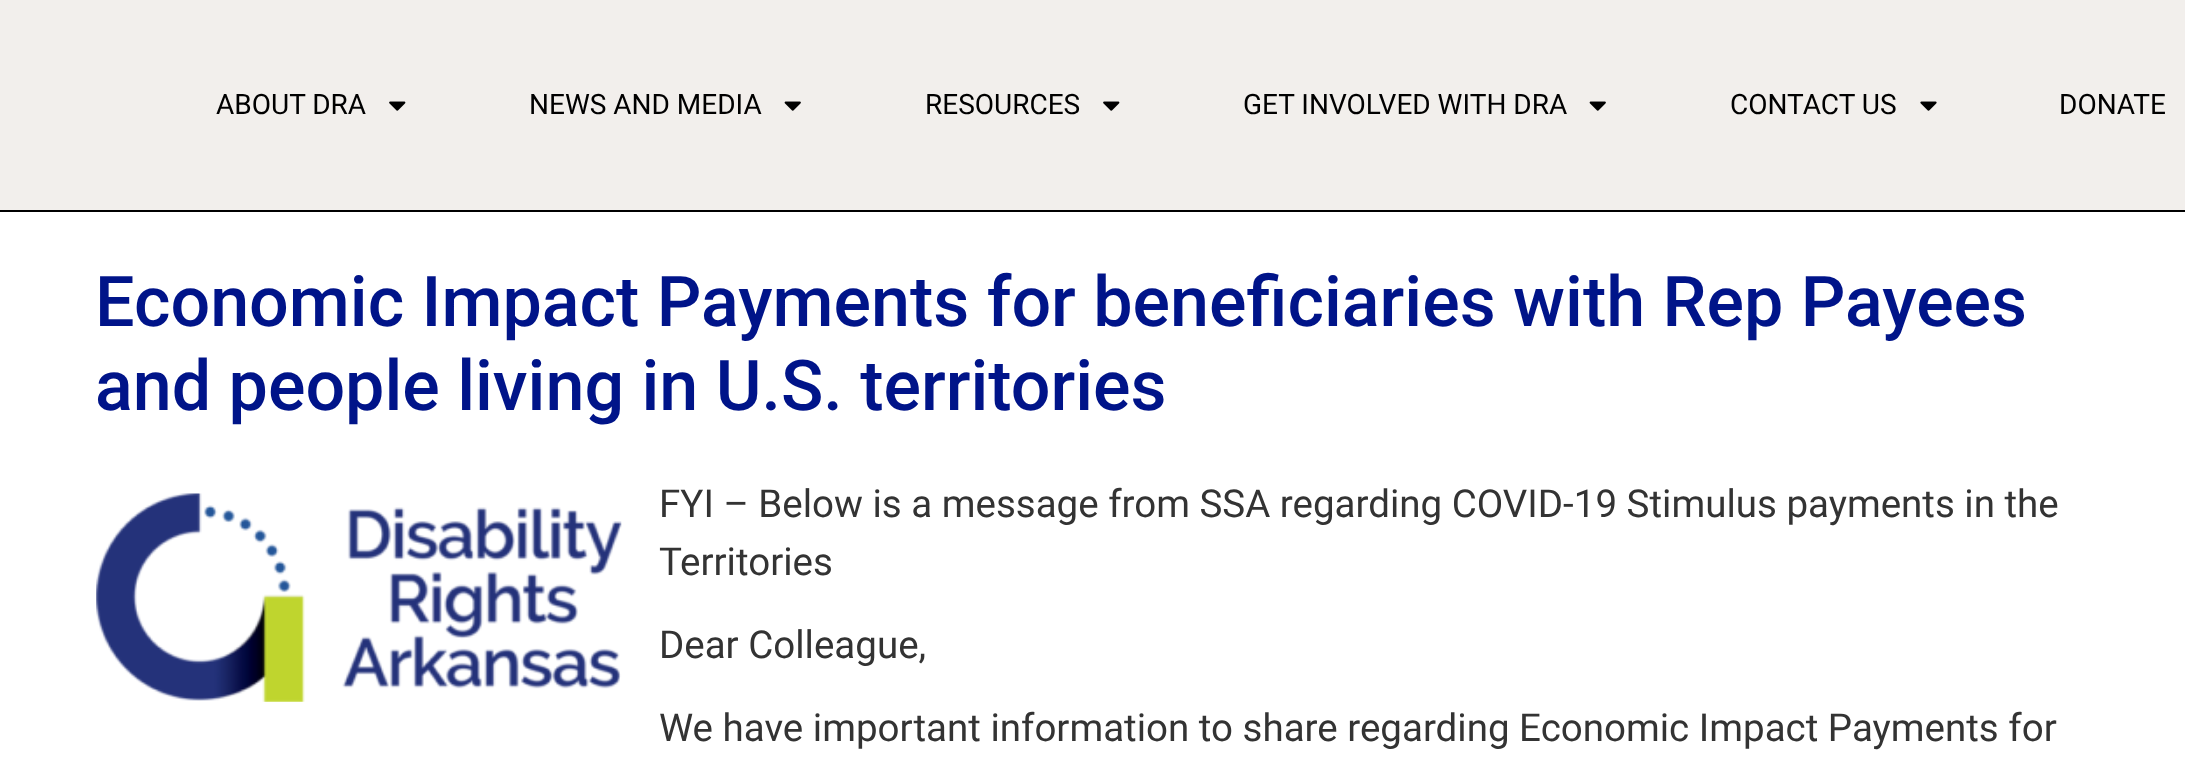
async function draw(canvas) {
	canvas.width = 2185;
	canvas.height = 764;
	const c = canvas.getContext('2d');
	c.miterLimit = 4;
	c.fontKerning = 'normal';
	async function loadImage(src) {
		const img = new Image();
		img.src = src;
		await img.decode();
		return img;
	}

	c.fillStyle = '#fff';
	c.fillRect(0, 0, 2185, 764);
	c.fillStyle = '#f2efec';
	c.fillRect(0, 0, 2185, 210);
	c.fillStyle = '#000';
	c.fillRect(0, 210, 2185, 2);
	c.font = '28px Roboto';
	c.fillText('ABOUT DRA', 216, 114);
	c.drawImage(await loadImage('img1.png'), 389, 101, 17, 10);
	c.fillText('NEWS AND MEDIA', 529, 114);
	c.drawImage(await loadImage('img2.png'), 784, 101, 17, 10);
	c.fillText('RESOURCES', 925, 114);
	c.drawImage(await loadImage('img1.png'), 1103, 101, 17, 10);
	c.fillText('GET INVOLVED WITH DRA', 1243, 114);
	c.drawImage(await loadImage('img2.png'), 1589, 101, 17, 10);
	c.fillText('CONTACT US', 1730, 114);
	c.drawImage(await loadImage('img3.png'), 1920, 101, 17, 10);
	c.fillText('DONATE', 2059, 114);
	c.font = '500 70px Roboto';
	c.fillStyle = '#001489';
	c.fillText('Economic Impact Payments for beneficiaries with Rep Payees', 95, 326);
	c.fillText('and people living in U.S. territories', 95, 410);
	c.drawImage(await loadImage('img4.png'), 96, 493, 526, 209);
	c.font = '38.5px Roboto';
	c.fillStyle = '#333';
	for (const [text, x, y] of [
		['FYI – Below is a message from SSA regarding COVID-19 Stimulus payments in the', 659, 517],
		['Territories', 659, 575],
		['Dear Colleague,', 659, 658],
		['We have important information to share regarding Economic Impact Payments for', 659, 741],
	]) {
		c.fillText(text, x, y);
	}
}

draw(document.querySelector('canvas'));
